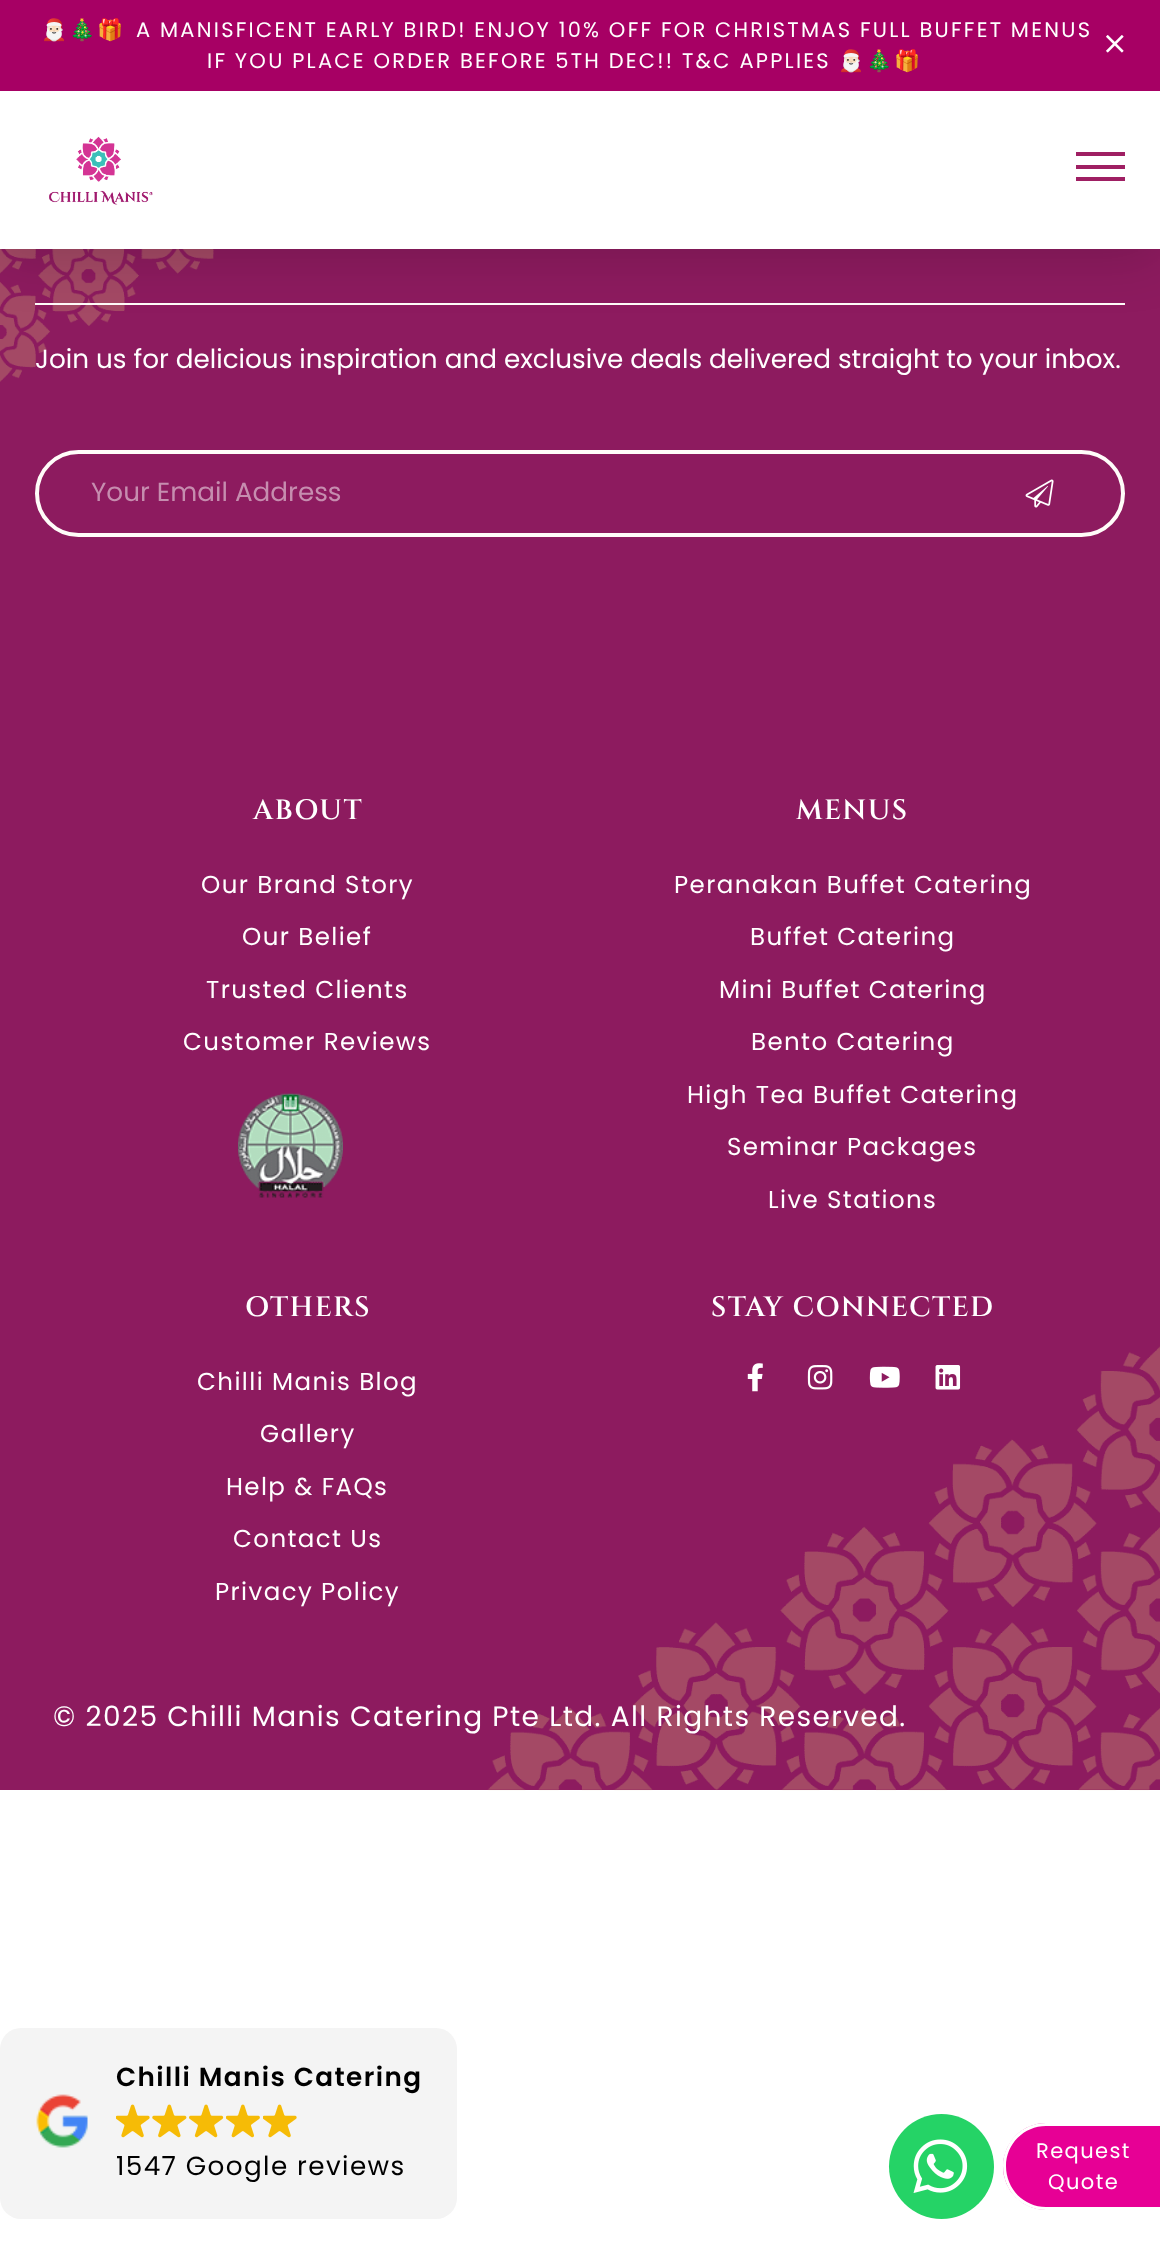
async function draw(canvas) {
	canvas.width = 1160;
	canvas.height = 2253;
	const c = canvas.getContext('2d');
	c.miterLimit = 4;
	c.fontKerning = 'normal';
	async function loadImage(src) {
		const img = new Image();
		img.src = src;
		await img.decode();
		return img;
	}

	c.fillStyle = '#fff';
	c.fillRect(0, 0, 1160, 2253);
	c.fillStyle = '#8d1b5f';
	c.fillRect(0, 249, 1160, 1541);
	c.drawImage(await loadImage('img3.png'), 0, 249, 214, 133);
	c.fillStyle = '#fffcf9';
	c.fillRect(35, 303, 1090, 2);
	c.fillStyle = '#00000029';
	c.filter = 'blur(28px)';
	c.beginPath();
	c.rect(0, 7, 1160, 249);
	c.fill();
	c.filter = 'none';
	c.fillStyle = '#fff';
	c.fillRect(0, 91, 1160, 158);
	c.fillStyle = '#a70064';
	c.fillRect(0, 0, 1160, 91);
	c.letterSpacing = '2.25px';
	c.font = '21px Noto Color Emoji';
	c.fillStyle = '#fff';
	c.fillText('🎅🏻🎄🎁', 41, 37);
	c.wordSpacing = '-0.25px';
	c.font = '21px Poppins';
	c.fillText('A MANISFICENT EARLY BIRD! ENJOY 10% OFF FOR CHRISTMAS FULL BUFFET MENUS', 136, 37);
	c.fillText('IF YOU PLACE ORDER BEFORE 5TH DEC!! T&C APPLIES', 207, 68);
	c.wordSpacing = '0px';
	c.font = '21px Noto Color Emoji';
	c.fillText('🎅🏻🎄🎁', 838, 68);
	c.drawImage(await loadImage('img1.png'), 1106, 35, 18, 18);
	c.drawImage(await loadImage('img2.png'), 49, 136, 104, 69);
	for (const [x, y, w, h, color] of [
		[1076, 152, 49, 4, '#9f1f63'],
		[1076, 165, 49, 4, '#9f1f63'],
		[1076, 177, 49, 4, '#9f1f63'],
	]) {
		c.fillStyle = color;
		c.fillRect(x, y, w, h);
	}
	c.letterSpacing = '0px';
	c.font = '26.25px Poppins';
	c.fillStyle = '#fff';
	c.fillText('Join us for delicious inspiration and exclusive deals delivered straight to your inbox.', 35, 368);
	c.beginPath();
	c.roundRect(37, 452, 1086, 83, 41.5);
	c.strokeStyle = '#fffcf9';
	c.lineWidth = 4;
	c.stroke();
	c.fillStyle = '#c68daf';
	c.fillText('Your Email Address', 91, 501);
	c.drawImage(await loadImage('img4.png'), 1025, 479, 29, 29);
	c.letterSpacing = '1.4px';
	c.font = '600 28px Cinzel';
	c.fillStyle = '#fff';
	c.fillText('ABOUT', 253, 819);
	c.font = '24.5px Poppins';
	for (const [text, x, y] of [
		['Our Brand Story', 201, 893],
		['Our Belief', 242, 945],
		['Trusted Clients', 206, 998],
		['Customer Reviews', 183, 1050],
	]) {
		c.fillText(text, x, y);
	}
	c.drawImage(await loadImage('img5.png'), 238, 1093, 105, 105);
	c.font = '600 28px Cinzel';
	c.fillText('MENUS', 796, 819);
	c.font = '24.5px Poppins';
	for (const [text, x, y] of [
		['Peranakan Buffet Catering', 674, 893],
		['Buffet Catering', 750, 945],
		['Mini Buffet Catering', 719, 998],
		['Bento Catering', 751, 1050],
		['High Tea Buffet Catering', 687, 1103],
		['Seminar Packages', 727, 1155],
		['Live Stations', 768, 1208],
	]) {
		c.fillText(text, x, y);
	}
	c.font = '600 28px Cinzel';
	c.fillText('OTHERS', 245, 1316);
	c.font = '24.5px Poppins';
	for (const [text, x, y] of [
		['Chilli Manis Blog', 197, 1390],
		['Gallery', 260, 1442],
		['Help & FAQs', 226, 1495],
		['Contact Us', 233, 1547],
		['Privacy Policy', 215, 1600],
	]) {
		c.fillText(text, x, y);
	}
	c.font = '600 28px Cinzel';
	c.fillText('STAY CONNECTED', 711, 1316);
	c.drawImage(await loadImage('img10.png'), 487, 1346, 673, 445);
	c.drawImage(await loadImage('img6.png'), 747, 1363, 16, 29);
	c.drawImage(await loadImage('img7.png'), 807, 1365, 26, 25);
	c.drawImage(await loadImage('img8.png'), 869, 1366, 31, 22);
	c.drawImage(await loadImage('img9.png'), 935, 1365, 26, 25);
	c.font = '28px Poppins';
	c.fillText('© 2025 Chilli Manis Catering Pte Ltd. All Rights Reserved.', 53, 1726);
	c.fillStyle = '#f4f4f4';
	c.beginPath();
	c.roundRect(0, 2028, 457, 191, 21);
	c.fill();
	c.drawImage(await loadImage('img11.png'), 36, 2094, 52, 54);
	c.font = '600 26.25px Poppins';
	c.fillStyle = '#000';
	c.fillText('Chilli Manis Catering', 116, 2086);
	c.drawImage(await loadImage('img12.png'), 116, 2104, 34, 34);
	c.drawImage(await loadImage('img13.png'), 152, 2104, 35, 34);
	c.drawImage(await loadImage('img14.png'), 189, 2104, 35, 34);
	c.drawImage(await loadImage('img15.png'), 226, 2104, 34, 34);
	c.drawImage(await loadImage('img12.png'), 263, 2104, 34, 34);
	c.font = '26.25px "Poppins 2"';
	c.fillText('1547 Google reviews', 116, 2175);
	c.fillStyle = '#25d366';
	c.beginPath();
	c.arc(941.5, 2166.5, 52.5, 0, 2 * Math.PI);
	c.fill();
	c.drawImage(await loadImage('img16.png'), 913, 2139, 55, 54);
	c.fillStyle = '#e70095';
	c.beginPath();
	c.roundRect(1003, 2123, 157, 87, [43.5, 0, 0, 43.5]);
	c.fill();
	c.fillStyle = '#fff';
	c.beginPath();
	c.moveTo(1046, 2123);
	c.lineTo(1160, 2123);
	c.lineTo(1160, 2210);
	c.lineTo(1046, 2210);
	c.bezierCurveTo(1022, 2210, 1003, 2191, 1003, 2166);
	c.bezierCurveTo(1003, 2142, 1022, 2123, 1046, 2123);
	c.closePath();
	c.moveTo(1046, 2126);
	c.lineTo(1160, 2126);
	c.lineTo(1160, 2207);
	c.lineTo(1046, 2207);
	c.bezierCurveTo(1024, 2207, 1006, 2189, 1006, 2166);
	c.bezierCurveTo(1006, 2144, 1024, 2126, 1046, 2126);
	c.closePath();
	c.fill('evenodd');
	c.font = '21px Poppins';
	c.fillText('Request', 1036, 2158);
	c.fillText('Quote', 1048, 2189);
}

draw(document.querySelector('canvas'));
